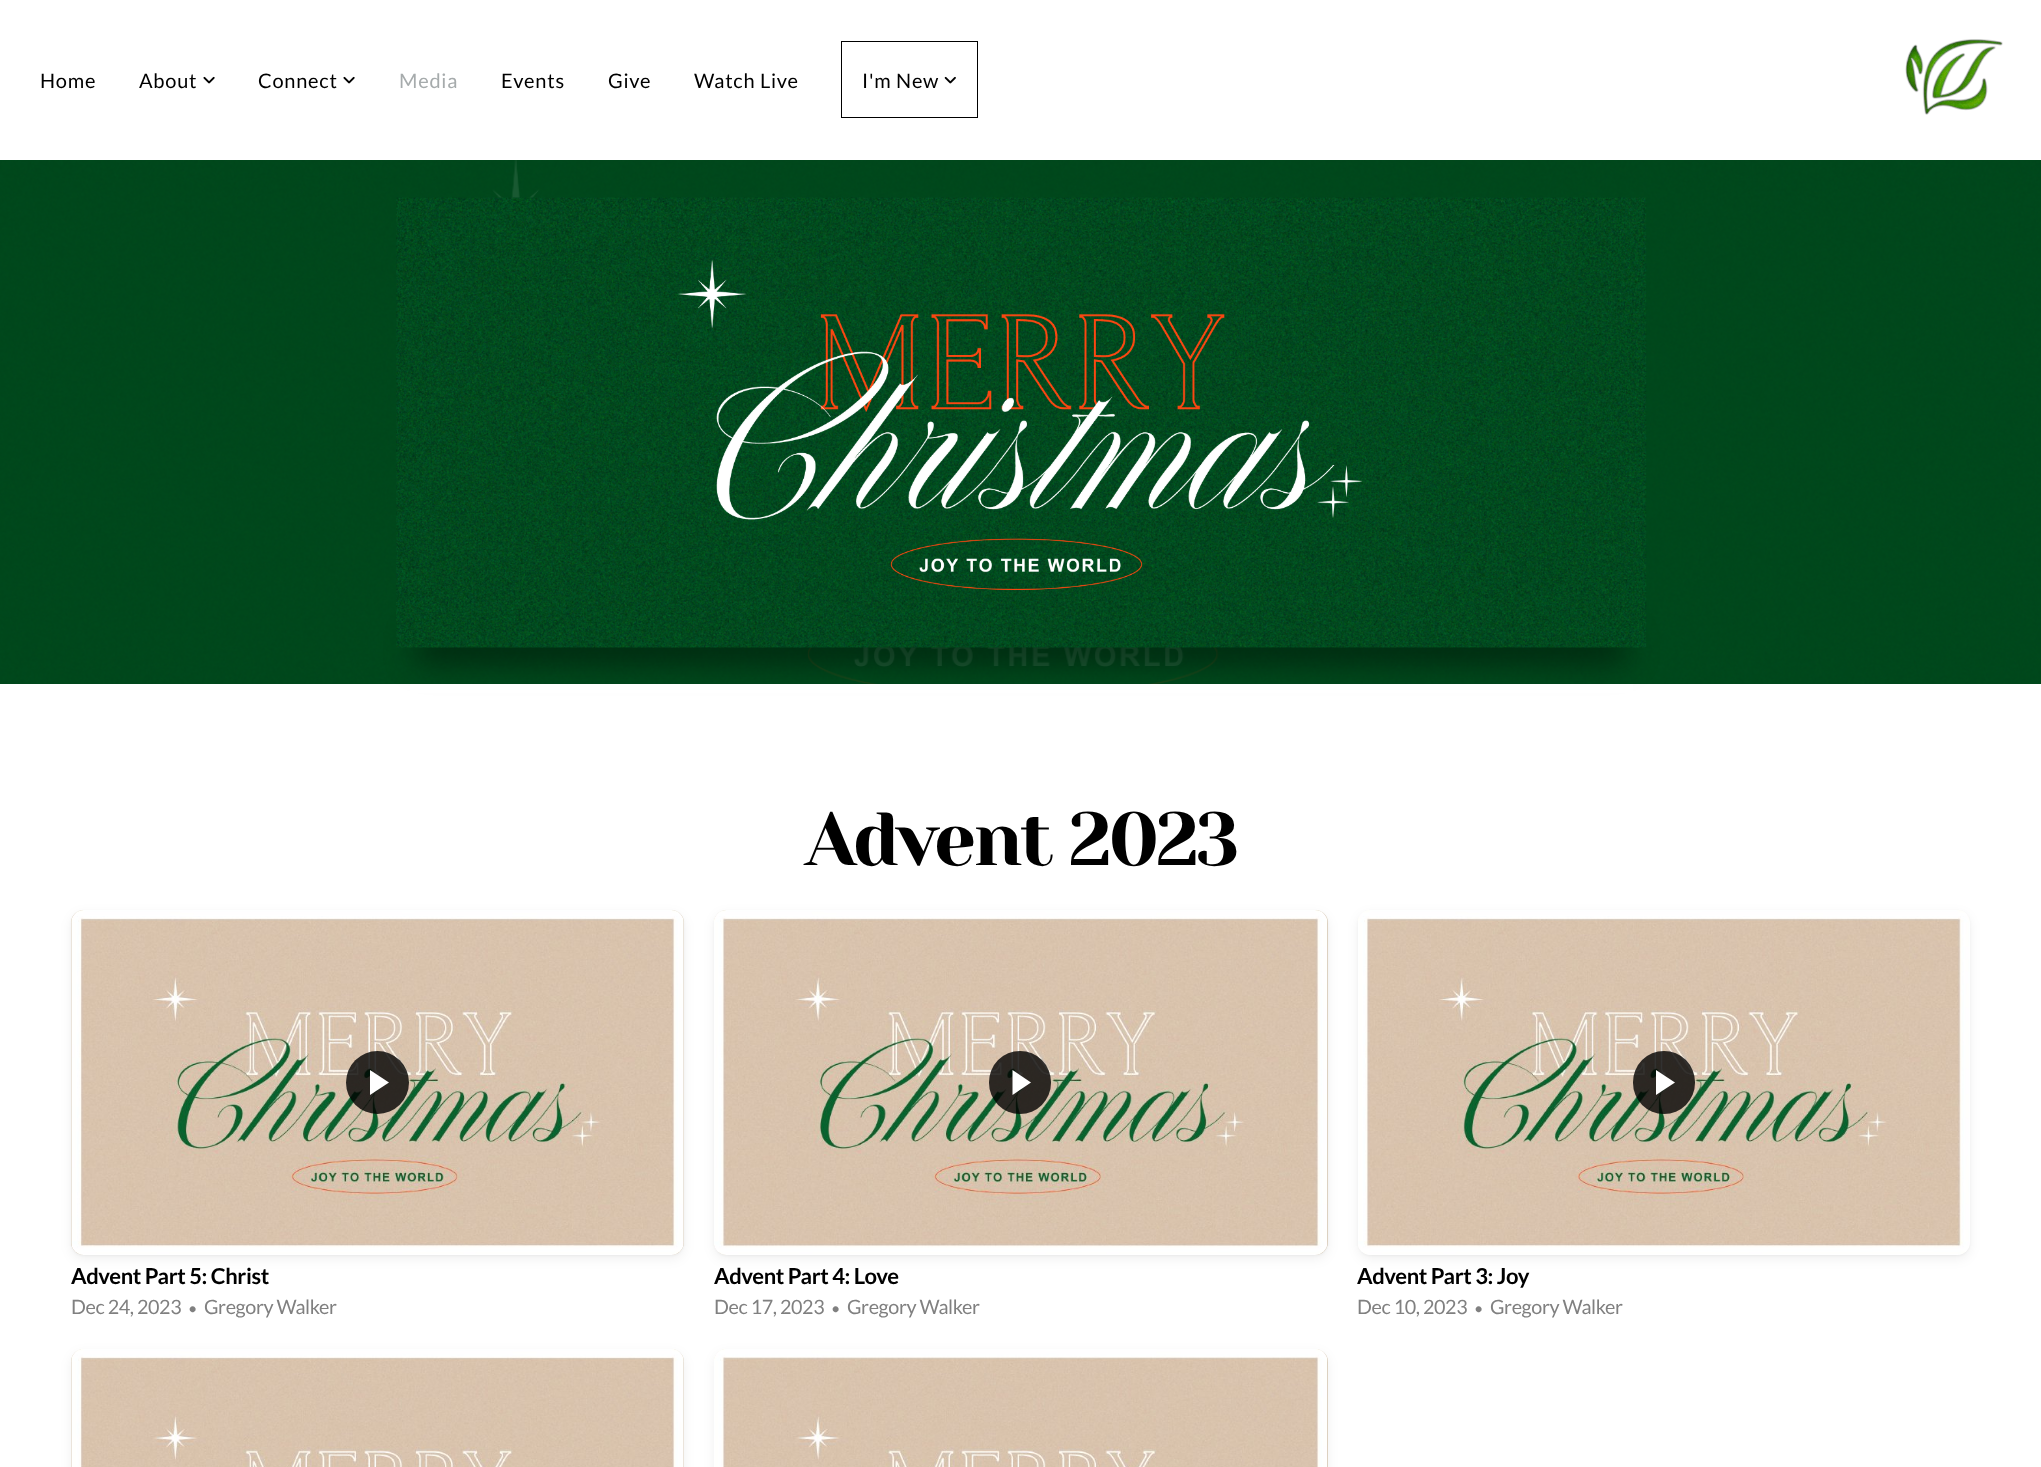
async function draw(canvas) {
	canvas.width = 2041;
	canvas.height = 1467;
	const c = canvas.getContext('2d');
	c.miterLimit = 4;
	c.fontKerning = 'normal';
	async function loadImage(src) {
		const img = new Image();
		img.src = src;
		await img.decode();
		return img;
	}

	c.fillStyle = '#fff';
	c.fillRect(0, 0, 2041, 1467);
	c.letterSpacing = '0.75px';
	c.font = '20px Lato';
	c.fillStyle = '#000';
	c.fillText('Home', 40, 88);
	c.fillText('About', 139, 88);
	c.drawImage(await loadImage('img1.png'), 203, 76, 12, 8);
	c.fillText('Connect', 258, 88);
	c.drawImage(await loadImage('img1.png'), 343, 76, 12, 8);
	c.fillStyle = '#a6abac';
	c.fillText('Media', 399, 88);
	c.fillStyle = '#000';
	for (const [text, x, y] of [
		['Events', 501, 88],
		['Give', 608, 88],
		['Watch Live', 694, 88],
	]) {
		c.fillText(text, x, y);
	}
	c.strokeStyle = '#000';
	c.strokeRect(841.5, 41.5, 136, 76);
	c.fillText('I\'m New', 862, 88);
	c.drawImage(await loadImage('img2.png'), 944, 76, 12, 8);
	c.drawImage(await loadImage('img3.png'), 1905, 39, 98, 76);
	c.drawImage(await loadImage('img4.png'), 0, 160, 2041, 524);
	c.fillStyle = '#00000080';
	c.filter = 'blur(15.5px)';
	c.beginPath();
	c.roundRect(414, 634, 1215, 27, 13.5);
	c.fill();
	c.filter = 'none';
	c.drawImage(await loadImage('img5.png'), 396, 197, 1251, 451);
	c.fillStyle = '#fff';
	c.fillRect(410, 684, 1223, 9);
	c.letterSpacing = '-3px';
	c.font = '75px Yeseva One';
	c.fillStyle = '#000';
	c.fillText('Advent 2023', 805, 865);
	c.fillStyle = '#0000000a';
	c.filter = 'blur(1px)';
	c.beginPath();
	c.roundRect(71, 911, 613, 345, 13);
	c.fill();
	c.filter = 'none';
	c.fillStyle = '#0000000f';
	c.filter = 'blur(6px)';
	c.beginPath();
	c.roundRect(71, 914, 613, 345, 13);
	c.fill();
	c.filter = 'none';
	c.fillStyle = '#d1c2ac';
	c.beginPath();
	c.roundRect(71, 910, 613, 345, 13);
	c.fill();
	c.drawImage(await loadImage('img6.png'), 71, 910, 613, 345);
	c.fillStyle = '#000000cc';
	c.beginPath();
	c.arc(377.5, 1082.5, 31.5, 0, 2 * Math.PI);
	c.fill();
	c.fillStyle = '#fff';
	c.beginPath();
	c.moveTo(370, 1095);
	c.lineTo(370, 1070);
	c.lineTo(389, 1082.5);
	c.closePath();
	c.fill();
	c.letterSpacing = '-0.4px';
	c.font = 'bold 22px Lato';
	c.fillStyle = '#000';
	c.fillText('Advent Part 5: Christ', 71, 1284);
	c.font = '19.75px Lato';
	c.fillStyle = '#808080';
	c.fillText('Dec 24, 2023', 71, 1314);
	c.font = '16px Lato';
	c.fillText('•', 188, 1314);
	c.font = '19.75px Lato';
	c.fillText('Gregory Walker', 204, 1314);
	c.fillStyle = '#0000000a';
	c.filter = 'blur(1px)';
	c.beginPath();
	c.roundRect(714, 911, 614, 345, 13);
	c.fill();
	c.filter = 'none';
	c.fillStyle = '#0000000f';
	c.filter = 'blur(6px)';
	c.beginPath();
	c.roundRect(714, 914, 614, 345, 13);
	c.fill();
	c.filter = 'none';
	c.fillStyle = '#d1c2ac';
	c.beginPath();
	c.roundRect(714, 910, 614, 345, 13);
	c.fill();
	c.drawImage(await loadImage('img7.png'), 714, 910, 614, 345);
	c.fillStyle = '#000000cc';
	c.beginPath();
	c.roundRect(989, 1051, 62, 63, 31);
	c.fill();
	c.fillStyle = '#fff';
	c.beginPath();
	c.moveTo(1012.5, 1095);
	c.lineTo(1012.5, 1070);
	c.lineTo(1031, 1082.5);
	c.closePath();
	c.fill();
	c.font = 'bold 22px Lato';
	c.fillStyle = '#000';
	c.fillText('Advent Part 4: Love', 714, 1284);
	c.font = '19.75px Lato';
	c.fillStyle = '#808080';
	c.fillText('Dec 17, 2023', 714, 1314);
	c.font = '16px Lato';
	c.fillText('•', 831, 1314);
	c.font = '19.75px Lato';
	c.fillText('Gregory Walker', 847, 1314);
	c.fillStyle = '#0000000a';
	c.filter = 'blur(1px)';
	c.beginPath();
	c.roundRect(1358, 911, 612, 345, 13);
	c.fill();
	c.filter = 'none';
	c.fillStyle = '#0000000f';
	c.filter = 'blur(6px)';
	c.beginPath();
	c.roundRect(1358, 914, 612, 345, 13);
	c.fill();
	c.filter = 'none';
	c.drawImage(await loadImage('img8.png'), 1358, 910, 612, 345);
	c.fillStyle = '#000000cc';
	c.beginPath();
	c.roundRect(1633, 1051, 62, 63, 31);
	c.fill();
	c.fillStyle = '#fff';
	c.beginPath();
	c.moveTo(1656, 1095);
	c.lineTo(1656, 1070);
	c.lineTo(1675, 1082.5);
	c.closePath();
	c.fill();
	c.font = 'bold 22px Lato';
	c.fillStyle = '#000';
	c.fillText('Advent Part 3: Joy', 1357, 1284);
	c.font = '19.75px Lato';
	c.fillStyle = '#808080';
	c.fillText('Dec 10, 2023', 1357, 1314);
	c.font = '16px Lato';
	c.fillText('•', 1474, 1314);
	c.font = '19.75px Lato';
	c.fillText('Gregory Walker', 1490, 1314);
	c.fillStyle = '#0000000f';
	c.filter = 'blur(6px)';
	c.beginPath();
	c.roundRect(71, 1353, 613, 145, 13);
	c.fill();
	c.filter = 'none';
	c.fillStyle = '#d1c2ac';
	c.beginPath();
	c.roundRect(71, 1349, 613, 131, 13);
	c.fill();
	c.drawImage(await loadImage('img9.png'), 71, 1349, 613, 118);
	c.fillStyle = '#0000000f';
	c.filter = 'blur(6px)';
	c.beginPath();
	c.roundRect(714, 1353, 614, 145, 13);
	c.fill();
	c.filter = 'none';
	c.fillStyle = '#d1c2ac';
	c.beginPath();
	c.roundRect(714, 1349, 614, 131, 13);
	c.fill();
	c.drawImage(await loadImage('img10.png'), 714, 1349, 614, 118);
}

draw(document.querySelector('canvas'));
